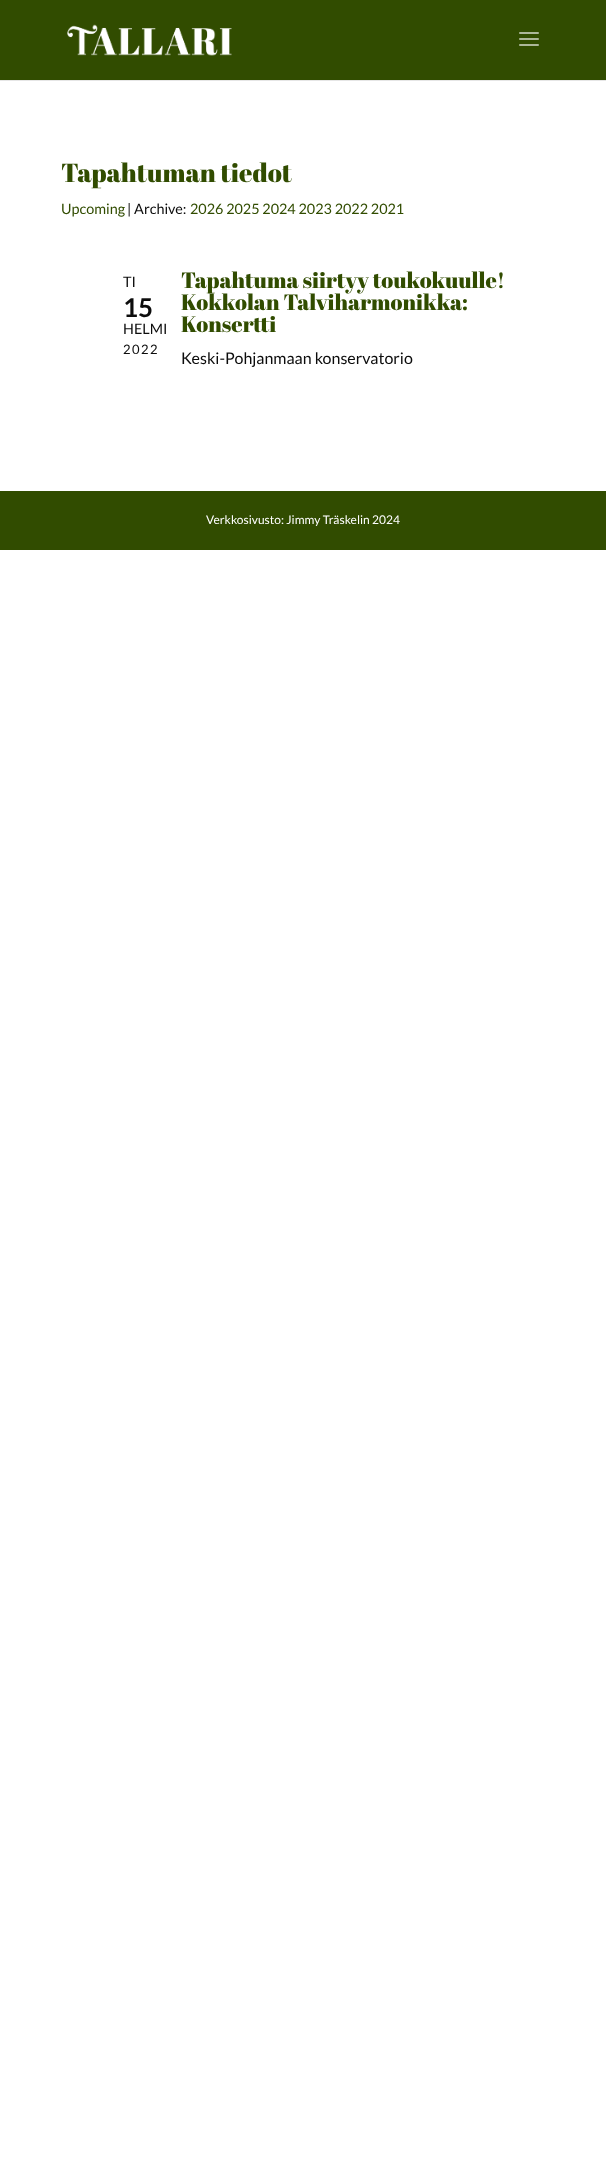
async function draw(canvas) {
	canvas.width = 606;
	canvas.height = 2157;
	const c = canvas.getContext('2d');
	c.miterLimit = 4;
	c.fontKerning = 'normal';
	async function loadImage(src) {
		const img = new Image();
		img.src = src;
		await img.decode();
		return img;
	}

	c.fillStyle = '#fff';
	c.fillRect(0, 0, 606, 2157);
	c.fillStyle = '#e6e6e6';
	c.fillRect(0, 80, 606, 1);
	c.fillStyle = '#314c00';
	c.fillRect(0, 0, 606, 80);
	c.drawImage(await loadImage('img1.png'), 67, 24, 165, 32);
	c.drawImage(await loadImage('img2.png'), 519, 32, 20, 14);
	c.font = '26px Abril Fatface';
	c.fillText('Tapahtuman tiedot', 61, 182);
	c.font = '14.4px Lato';
	c.fillText('Upcoming', 61, 214);
	c.fillStyle = '#0c0c0c';
	c.fillText('| Archive:', 127, 214);
	c.fillStyle = '#314c00';
	c.fillText('2026 2025 2024 2023 2022 2021', 190, 214);
	c.fillStyle = '#0c0c0c';
	c.fillText('TI', 123, 287);
	c.font = 'bold 26px Lato';
	c.fillText('15', 123, 317);
	c.font = '14.4px Lato';
	c.fillText('HELMI', 123, 334);
	c.letterSpacing = '1.5px';
	c.font = '13px Lato';
	c.fillText('2022', 123, 354);
	c.letterSpacing = '0px';
	c.font = '22px Abril Fatface';
	c.fillStyle = '#314c00';
	for (const [text, x, y] of [
		['Tapahtuma siirtyy toukokuulle!', 181, 288],
		['Kokkolan Talviharmonikka:', 181, 310],
		['Konsertti', 181, 332],
	]) {
		c.fillText(text, x, y);
	}
	c.font = '16px Lato';
	c.fillStyle = '#0c0c0c';
	c.fillText('Keski-Pohjanmaan konservatorio', 181, 364);
	c.fillStyle = '#314c00';
	c.fillRect(0, 491, 606, 59);
	c.font = '12px Lato';
	c.fillStyle = '#fff';
	c.fillText('Verkkosivusto: Jimmy Träskelin 2024', 206, 524);
}

draw(document.querySelector('canvas'));
